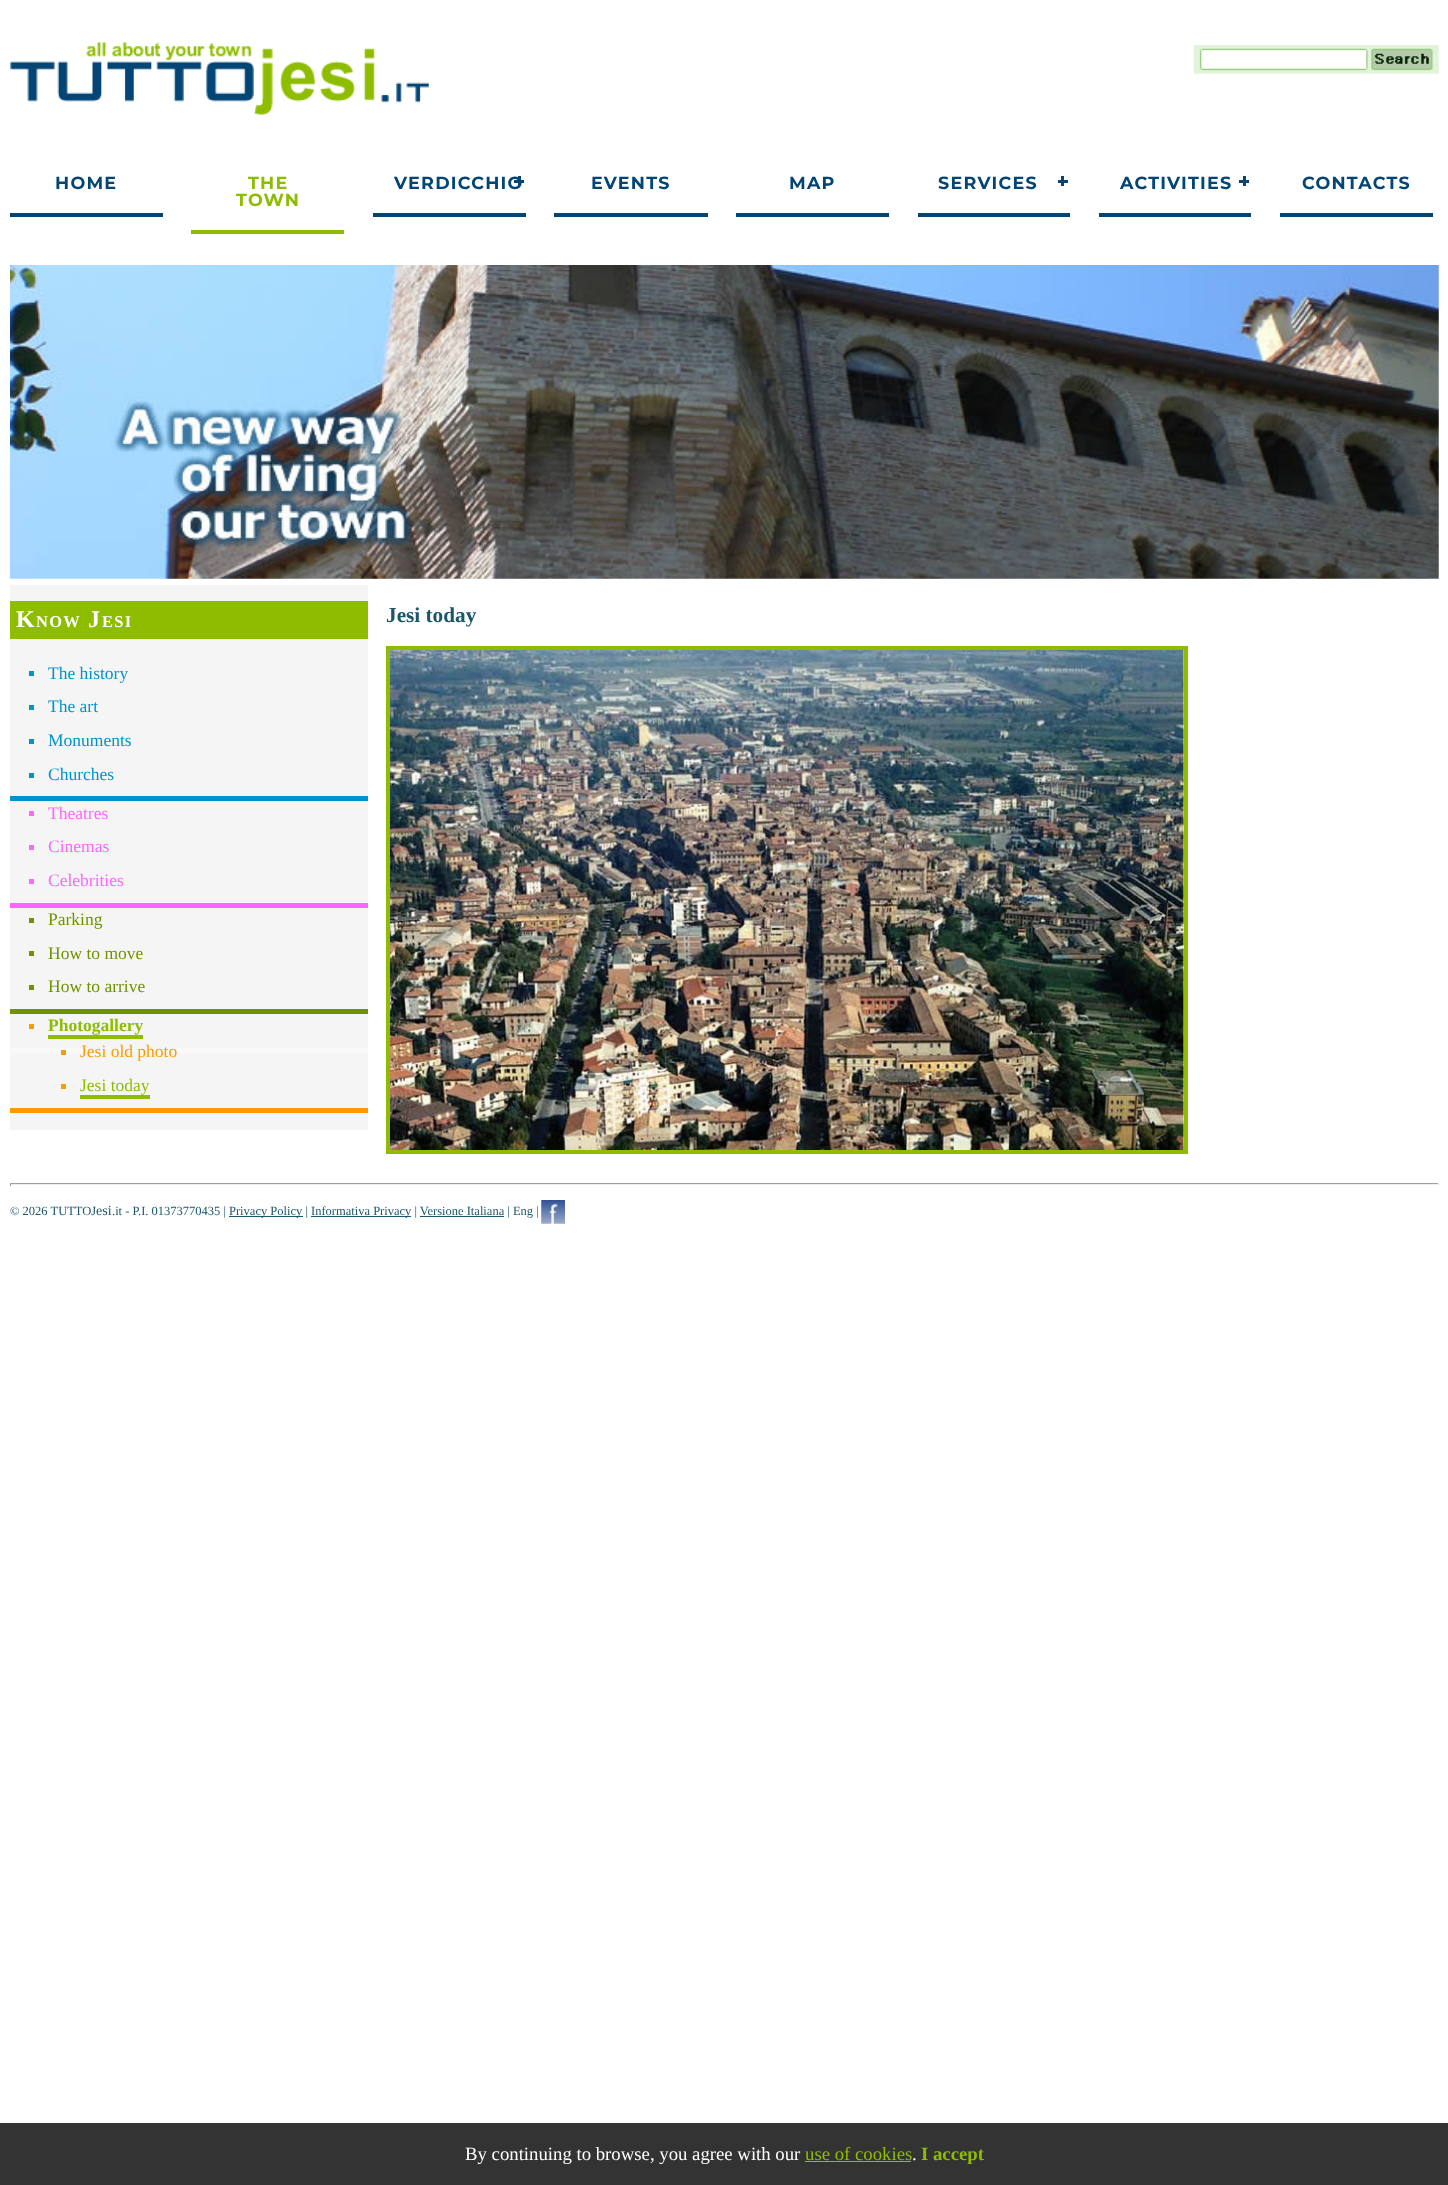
async function draw(canvas) {
	canvas.width = 1448;
	canvas.height = 2185;
	const c = canvas.getContext('2d');
	c.miterLimit = 4;
	c.fontKerning = 'normal';
	async function loadImage(src) {
		const img = new Image();
		img.src = src;
		await img.decode();
		return img;
	}

	c.fillStyle = '#fff';
	c.fillRect(0, 0, 1448, 2185);
	c.drawImage(await loadImage('img1.png'), 10, 42, 419, 73);
	c.drawImage(await loadImage('img2.png'), 1193, 45, 246, 29);
	c.fillStyle = '#034575';
	c.fillRect(10, 213, 153, 4);
	c.letterSpacing = '1.25px';
	c.font = 'bold 17.5px Montserrat';
	c.fillText('HOME', 55, 189);
	c.fillStyle = '#8ebd00';
	c.fillRect(191, 230, 153, 4);
	c.fillText('THE', 248, 189);
	c.fillText('TOWN', 236, 206);
	c.fillStyle = '#034575';
	c.fillRect(373, 213, 153, 4);
	c.fillText('VERDICCHIO', 394, 189);
	for (const [x, y, w, h, color] of [
		[518, 176, 3, 10, '#034575'],
		[514, 180, 10, 3, '#034575'],
		[554, 213, 154, 4, '#034575'],
	]) {
		c.fillStyle = color;
		c.fillRect(x, y, w, h);
	}
	c.fillText('EVENTS', 591, 189);
	c.fillRect(736, 213, 153, 4);
	c.fillText('MAP', 789, 189);
	c.fillRect(918, 213, 152, 4);
	c.fillText('SERVICES', 938, 189);
	for (const [x, y, w, h, color] of [
		[1061, 176, 3, 10, '#034575'],
		[1058, 180, 10, 3, '#034575'],
		[1099, 213, 152, 4, '#034575'],
	]) {
		c.fillStyle = color;
		c.fillRect(x, y, w, h);
	}
	c.fillText('ACTIVITIES', 1120, 189);
	for (const [x, y, w, h, color] of [
		[1243, 176, 3, 10, '#034575'],
		[1239, 180, 10, 3, '#034575'],
		[1280, 213, 153, 4, '#034575'],
	]) {
		c.fillStyle = color;
		c.fillRect(x, y, w, h);
	}
	c.fillText('CONTACTS', 1302, 189);
	c.drawImage(await loadImage('img3.png'), 10, 265, 1429, 314);
	c.fillStyle = '#f5f5f5';
	c.fillRect(10, 585, 358, 545);
	c.fillStyle = '#8ebd00';
	c.fillRect(10, 601, 358, 38);
	c.font = 'bold 24px Liberation Serif';
	c.fillStyle = '#fff';
	c.fillText('K', 16, 627);
	c.font = 'bold 16.5px Liberation Serif';
	c.fillText('NOW', 36, 627);
	c.font = 'bold 24px Liberation Serif';
	c.fillText('J', 88, 627);
	c.font = 'bold 16.5px Liberation Serif';
	c.fillText('ESI', 102, 627);
	c.fillStyle = '#0094cc';
	c.fillRect(10, 796, 358, 5);
	c.fillRect(29, 671, 5, 5);
	c.letterSpacing = '0px';
	c.font = '17.5px Liberation Serif';
	c.fillText('The history', 48, 679);
	c.fillRect(29, 705, 5, 5);
	c.fillText('The art', 48, 712);
	c.fillRect(29, 739, 5, 5);
	c.fillText('Monuments', 48, 746);
	c.fillRect(29, 773, 5, 5);
	c.fillText('Churches', 48, 780);
	c.fillStyle = '#f6f';
	c.fillRect(10, 903, 358, 5);
	c.fillRect(29, 811, 5, 5);
	c.fillText('Theatres', 48, 819);
	c.fillRect(29, 845, 5, 5);
	c.fillText('Cinemas', 48, 852);
	c.fillRect(29, 879, 5, 5);
	c.fillText('Celebrities', 48, 886);
	c.fillStyle = '#6f9300';
	c.fillRect(10, 1009, 358, 5);
	c.fillRect(29, 918, 5, 5);
	c.fillText('Parking', 48, 925);
	c.fillRect(29, 951, 5, 5);
	c.fillText('How to move', 48, 959);
	c.fillRect(29, 985, 5, 5);
	c.fillText('How to arrive', 48, 992);
	c.fillStyle = '#f90';
	c.fillRect(29, 1024, 5, 5);
	c.font = 'bold 17.5px Liberation Serif';
	c.fillStyle = '#8ebd00';
	c.fillText('Photogallery', 48, 1031);
	for (const [x, y, w, h, color] of [
		[48, 1035, 95, 4, '#8ebd00'],
		[10, 1048, 358, 5, '#f9f9f9'],
		[10, 1108, 358, 5, '#f90'],
		[61, 1050, 5, 5, '#f90'],
	]) {
		c.fillStyle = color;
		c.fillRect(x, y, w, h);
	}
	c.font = '17.5px Liberation Serif';
	c.fillText('Jesi old photo', 80, 1057);
	c.fillRect(61, 1084, 5, 5);
	c.fillStyle = '#8ebd00';
	c.fillText('Jesi today', 80, 1091);
	c.fillRect(80, 1095, 70, 4);
	c.font = 'bold 21.25px Liberation Serif';
	c.fillStyle = '#1b5669';
	c.fillText('Jesi today', 386, 622);
	c.strokeStyle = '#8ebd00';
	c.lineWidth = 4;
	c.strokeRect(388, 648, 798, 504);
	c.drawImage(await loadImage('img4.png'), 390, 650, 794, 500);
	for (const [x, y, w, h, color] of [
		[10, 1183, 1429, 1, '#9f9f9f'],
		[1438, 1183, 1, 3, '#eee'],
		[10, 1184, 1429, 1, '#eee'],
		[10, 1183, 1, 3, '#9f9f9f'],
	]) {
		c.fillStyle = color;
		c.fillRect(x, y, w, h);
	}
	c.font = '12.5px Liberation Serif';
	c.fillStyle = '#1b5669';
	c.fillText('© 2026 TUTTOJ', 10, 1215);
	c.font = '14px Liberation Serif';
	c.fillText('esi', 96, 1215);
	c.font = '12.5px Liberation Serif';
	c.fillText('.it - P.I. 01373770435 |', 112, 1215);
	c.fillRect(229, 1216, 74, 1);
	c.fillText('Privacy Policy |', 229, 1215);
	c.fillRect(311, 1216, 100, 1);
	c.fillText('Informativa Privacy | Versione Italiana | Eng |', 311, 1215);
	c.drawImage(await loadImage('img5.png'), 541, 1200, 24, 24);
	c.fillRect(420, 1216, 84, 1);
	c.fillStyle = '#333';
	c.fillRect(0, 2123, 1448, 62);
	c.font = '18.75px Liberation Serif';
	c.fillStyle = '#fff';
	c.fillText('By continuing to browse, you agree with our', 465, 2160);
	c.fillStyle = '#8ebd00';
	c.fillText('use of cookies', 805, 2160);
	c.fillRect(805, 2161, 106, 1);
	c.fillStyle = '#fff';
	c.fillText('.', 912, 2160);
	c.font = 'bold 18.75px Liberation Serif';
	c.fillStyle = '#8ebd00';
	c.fillText('I accept', 921, 2160);
}

draw(document.querySelector('canvas'));
